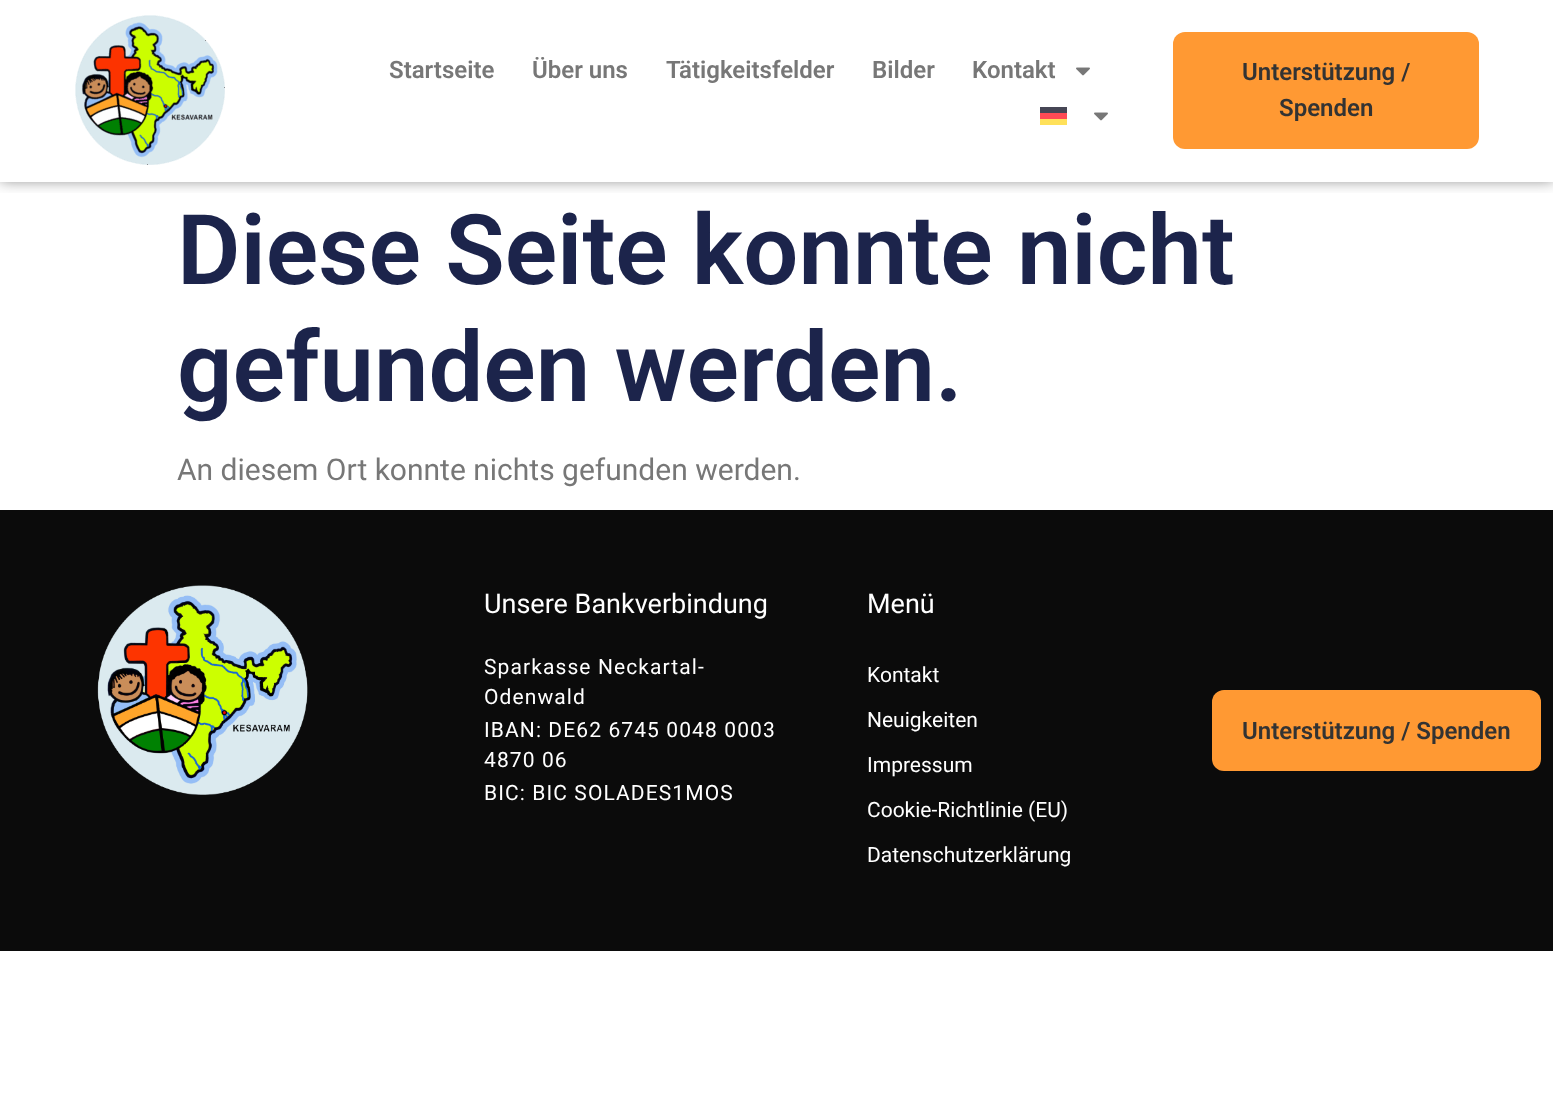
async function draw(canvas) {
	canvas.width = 1553;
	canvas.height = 1104;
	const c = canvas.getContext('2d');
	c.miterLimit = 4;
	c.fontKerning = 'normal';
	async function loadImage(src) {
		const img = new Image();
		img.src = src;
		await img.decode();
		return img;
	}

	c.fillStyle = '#fff';
	c.fillRect(0, 0, 1553, 1104);
	c.save();
	c.beginPath();
	c.rect(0, 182, 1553, 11);
	c.clip();
	c.fillStyle = '#00000080';
	c.filter = 'blur(7.5px)';
	c.beginPath();
	c.rect(0, 0, 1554, 180);
	c.fill();
	c.filter = 'none';
	c.restore();
	c.beginPath();
	c.moveTo(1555, 173);
	c.lineTo(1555, 182);
	c.lineTo(-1, 182);
	c.lineTo(-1, 26);
	c.closePath();
	c.fill();
	c.drawImage(await loadImage('img1.png'), 75, 15, 150, 150);
	c.font = '600 24px Roboto';
	c.fillStyle = '#777';
	for (const [text, x, y] of [
		['Startseite', 389, 78],
		['Über uns', 532, 78],
		['Tätigkeitsfelder', 666, 78],
		['Bilder', 872, 78],
		['Kontakt', 972, 78],
	]) {
		c.fillText(text, x, y);
	}
	c.drawImage(await loadImage('img2.png'), 1076, 67, 14, 9);
	for (const [x, y, w, h, color] of [
		[1040, 113, 27, 6, '#ff4b55'],
		[1040, 119, 27, 6, '#ffe15a'],
		[1040, 107, 27, 6, '#464655'],
	]) {
		c.fillStyle = color;
		c.fillRect(x, y, w, h);
	}
	c.drawImage(await loadImage('img2.png'), 1094, 112, 14, 9);
	c.fillStyle = '#f93';
	c.beginPath();
	c.roundRect(1173, 32, 306, 117, 12);
	c.fill();
	c.fillStyle = '#333';
	c.fillText('Unterstützung /', 1242, 80);
	c.fillText('Spenden', 1279, 116);
	c.font = '600 97.5px Roboto';
	c.fillStyle = '#1c244b';
	c.fillText('Diese Seite konnte nicht', 177, 284);
	c.fillText('gefunden werden.', 177, 401);
	c.font = '30px Roboto';
	c.fillStyle = '#777';
	c.fillText('An diesem Ort konnte nichts gefunden werden.', 177, 480);
	c.fillStyle = '#0b0b0b';
	c.fillRect(0, 510, 1553, 441);
	c.drawImage(await loadImage('img3.png'), 97, 585, 211, 210);
	c.font = '27px Roboto';
	c.fillStyle = '#fff';
	c.fillText('Unsere Bankverbindung', 484, 613);
	c.letterSpacing = '1.1px';
	c.font = '21px Roboto';
	for (const [text, x, y] of [
		['Sparkasse Neckartal-', 484, 674],
		['Odenwald', 484, 704],
		['IBAN: DE62 6745 0048 0003', 484, 737],
		['4870 06', 484, 767],
		['BIC: BIC SOLADES1MOS', 484, 800],
	]) {
		c.fillText(text, x, y);
	}
	c.letterSpacing = '0px';
	c.font = '27px Roboto';
	c.fillText('Menü', 867, 613);
	c.font = '21px Roboto';
	for (const [text, x, y] of [
		['Kontakt', 867, 682],
		['Neuigkeiten', 867, 727],
		['Impressum', 867, 772],
		['Cookie-Richtlinie (EU)', 867, 817],
		['Datenschutzerklärung', 867, 862],
	]) {
		c.fillText(text, x, y);
	}
	c.fillStyle = '#f93';
	c.beginPath();
	c.roundRect(1212, 690, 329, 81, 12);
	c.fill();
	c.font = '600 24px Roboto';
	c.fillStyle = '#333';
	c.fillText('Unterstützung / Spenden', 1242, 739);
}

draw(document.querySelector('canvas'));
